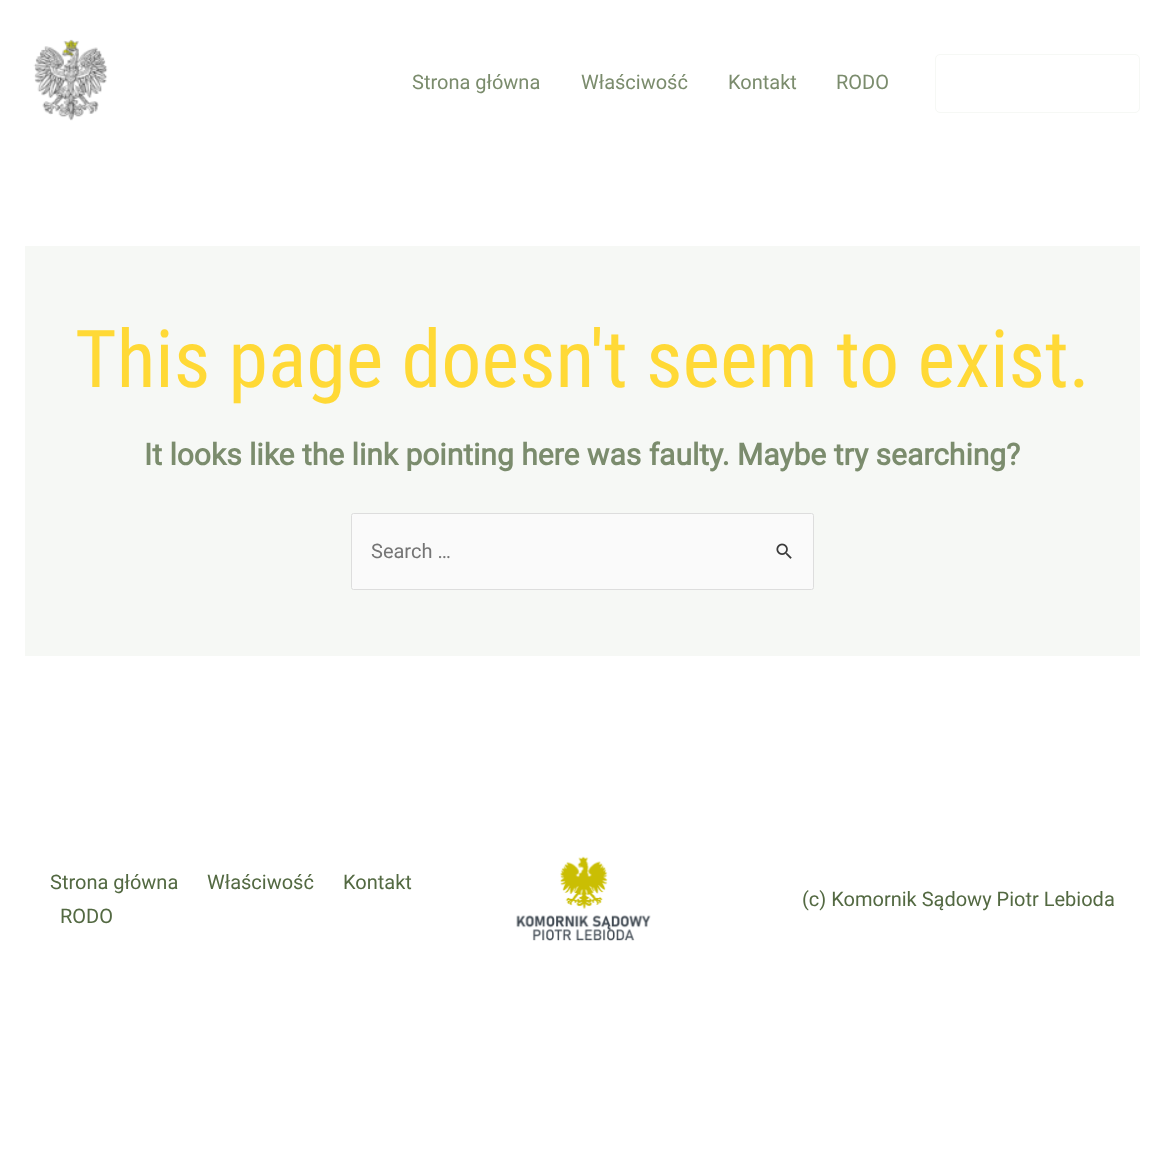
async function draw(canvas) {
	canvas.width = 1164;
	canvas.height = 1152;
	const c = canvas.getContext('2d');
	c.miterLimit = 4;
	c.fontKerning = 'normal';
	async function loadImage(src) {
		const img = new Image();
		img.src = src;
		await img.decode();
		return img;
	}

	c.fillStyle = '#fff';
	c.fillRect(0, 0, 1164, 1152);
	c.drawImage(await loadImage('img1.png'), 33, 39, 75, 82);
	c.font = '20px Roboto';
	c.fillStyle = '#7b8c6d';
	for (const [text, x, y] of [
		['Strona główna', 412, 89],
		['Właściwość', 581, 89],
		['Kontakt', 728, 89],
		['RODO', 836, 89],
	]) {
		c.fillText(text, x, y);
	}
	c.beginPath();
	c.roundRect(935.5, 54.5, 204, 58, 4.5);
	c.strokeStyle = '#f6f8f5';
	c.stroke();
	c.fillStyle = '#f6f8f5';
	c.fillRect(25, 246, 1115, 410);
	c.font = '80px Roboto Condensed';
	c.fillStyle = '#ffd936';
	c.fillText('This page doesn\'t seem to exist.', 75, 387);
	c.font = 'bold 30px Roboto';
	c.fillStyle = '#7b8c6d';
	c.fillText('It looks like the link pointing here was faulty. Maybe try searching?', 144, 465);
	c.fillStyle = '#fafafa';
	c.beginPath();
	c.roundRect(351.5, 513.5, 462, 76, 2);
	c.fill();
	c.strokeStyle = '#ddd';
	c.stroke();
	c.font = '20px Roboto';
	c.fillStyle = '#757575';
	c.fillText('Search …', 371, 558);
	c.drawImage(await loadImage('img2.png'), 776, 543, 16, 16);
	c.fillStyle = '#536942';
	for (const [text, x, y] of [
		['Strona główna', 50, 889],
		['Właściwość', 207, 889],
		['Kontakt', 343, 889],
		['RODO', 60, 923],
	]) {
		c.fillText(text, x, y);
	}
	c.drawImage(await loadImage('img3.png'), 516, 856, 135, 85);
	c.fillText('(c) Komornik Sądowy Piotr Lebioda', 802, 906);
}

draw(document.querySelector('canvas'));
